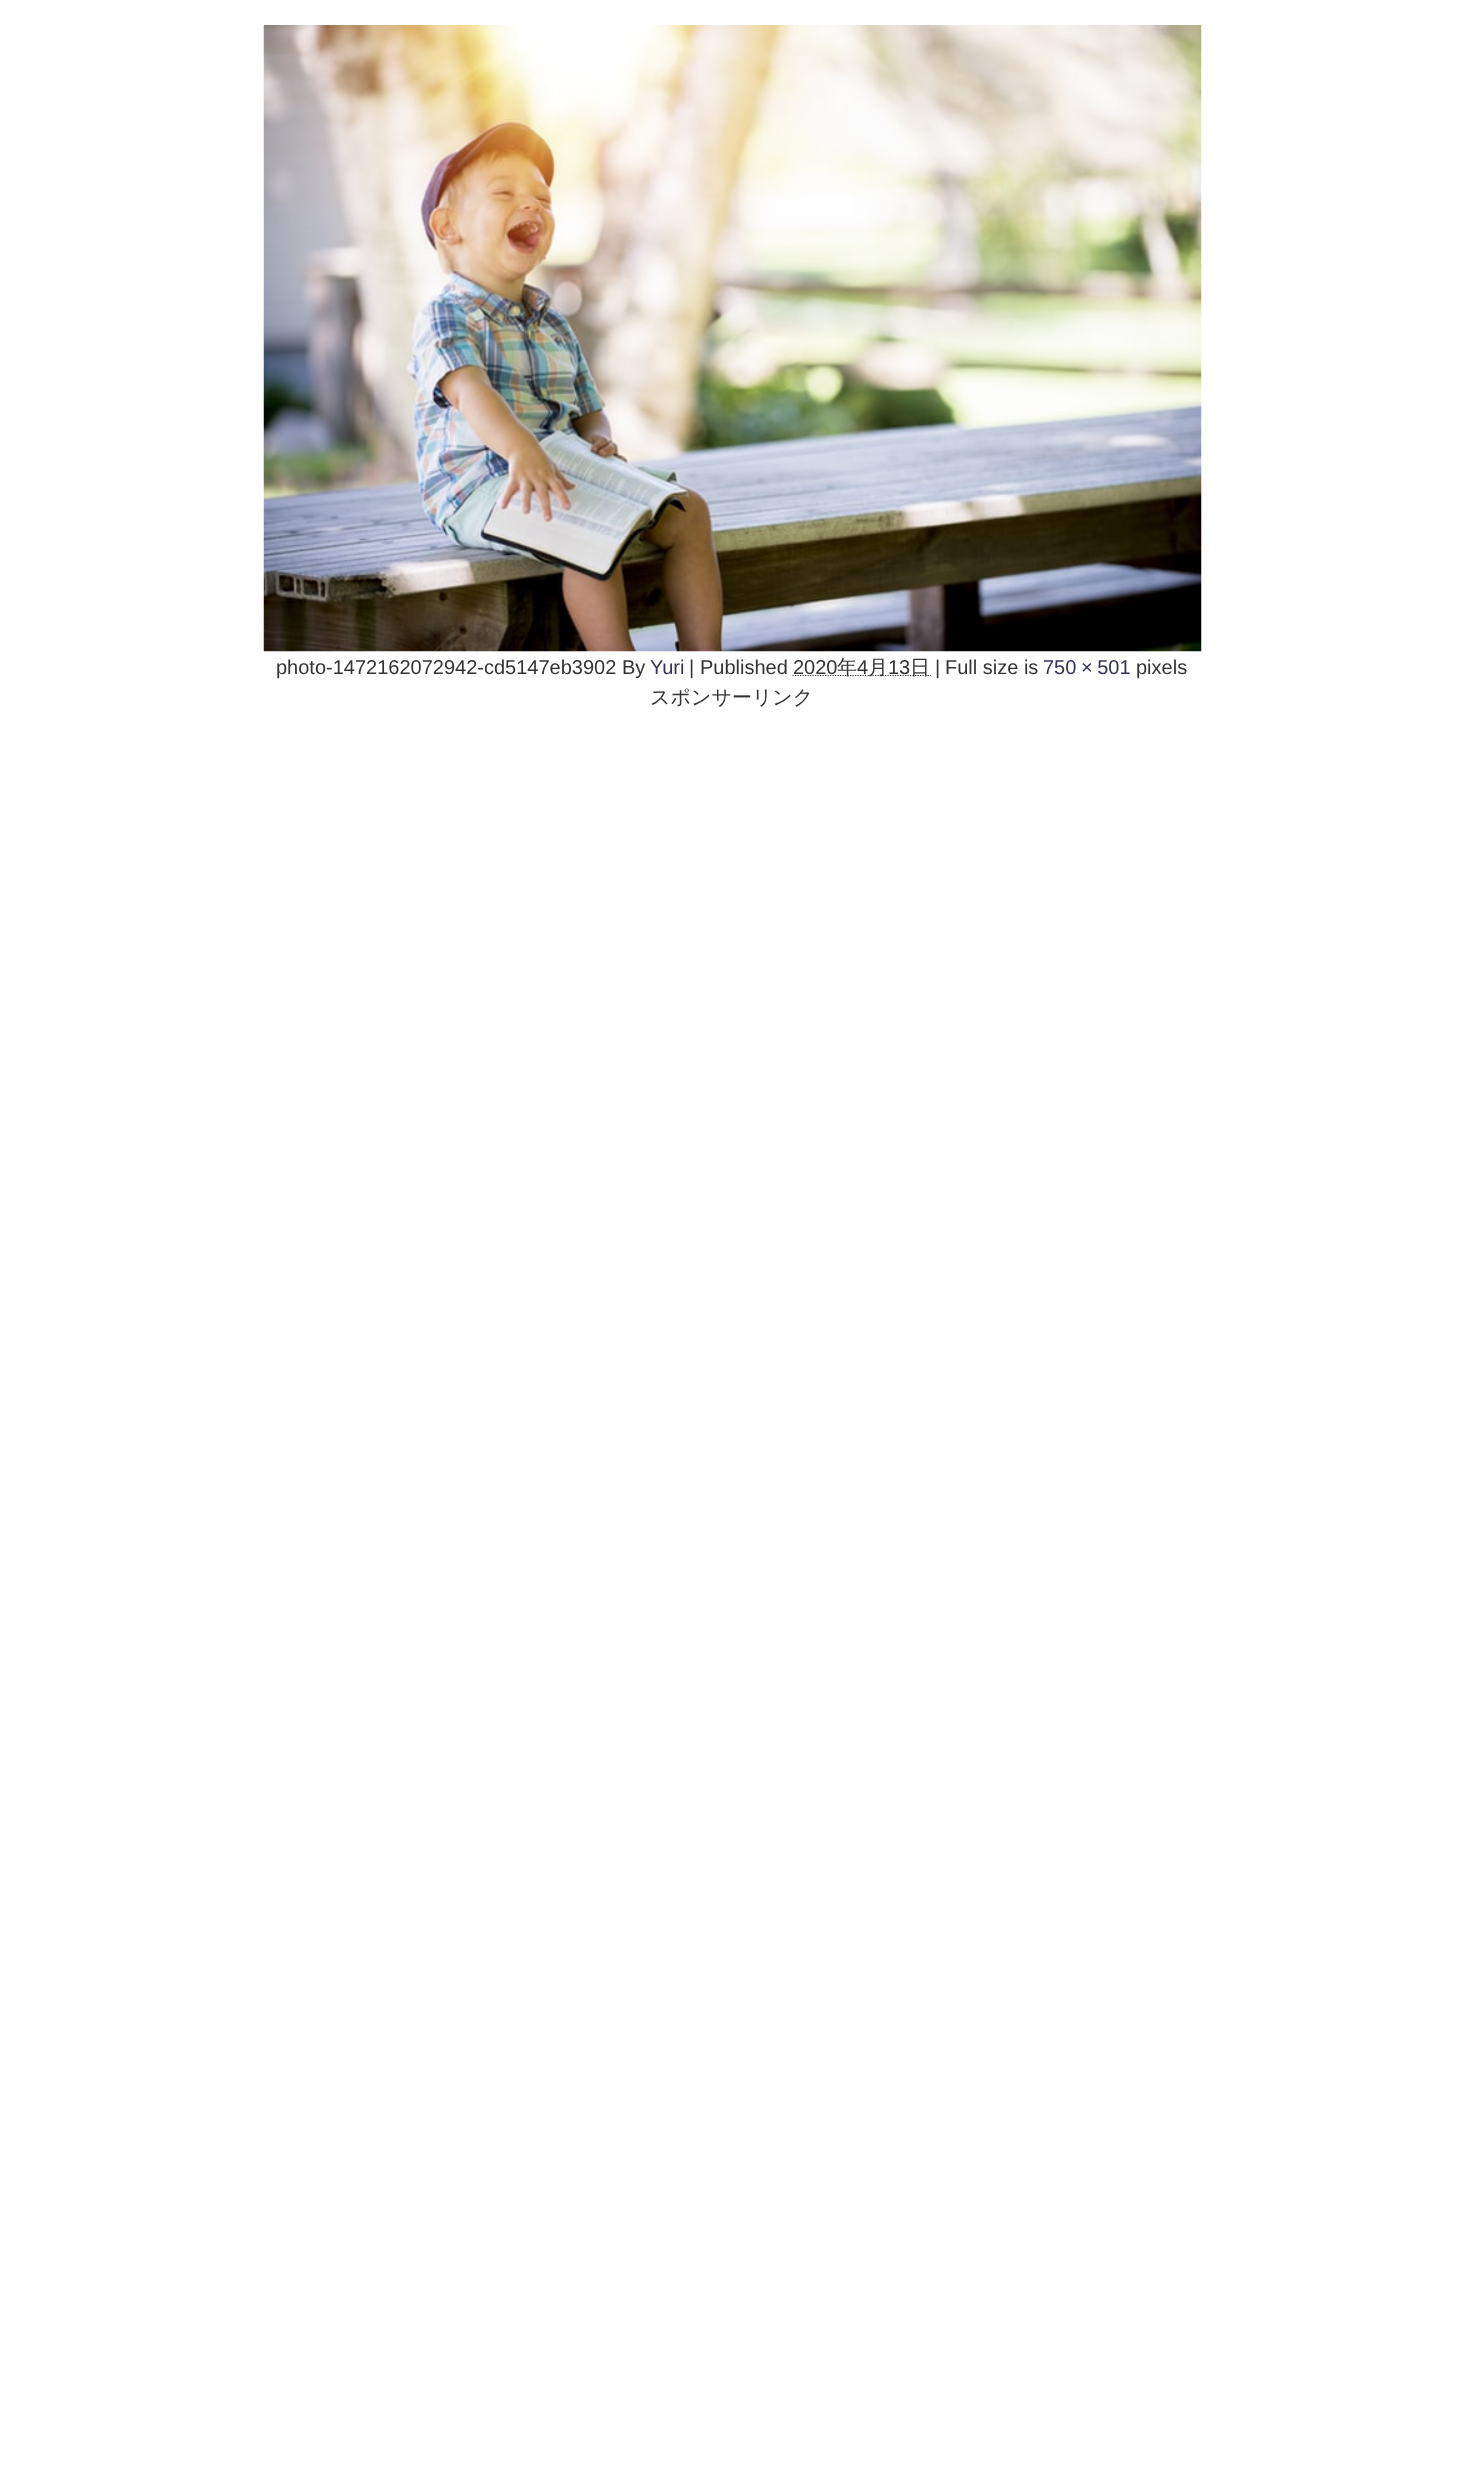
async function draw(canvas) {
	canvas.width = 1463;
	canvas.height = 2476;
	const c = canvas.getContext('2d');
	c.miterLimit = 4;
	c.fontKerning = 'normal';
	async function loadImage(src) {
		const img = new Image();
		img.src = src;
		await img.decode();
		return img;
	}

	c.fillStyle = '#fff';
	c.fillRect(0, 0, 1463, 2476);
	c.drawImage(await loadImage('img1.png'), 263, 25, 939, 627);
	c.font = '20px Liberation Sans';
	c.fillStyle = '#333';
	c.fillText('photo-1472162072942-cd5147eb3902', 276, 674);
	c.fillText('By', 622, 674);
	c.fillStyle = '#335';
	c.fillText('Yuri', 650, 674);
	c.fillStyle = '#333';
	c.fillText('|', 689, 674);
	c.fillText('Published', 700, 674);
	c.beginPath();
	c.moveTo(792.5, 675.5);
	c.lineTo(930.5, 675.5);
	c.strokeStyle = '#333';
	c.lineWidth = 1.2;
	c.setLineDash([1.25, 1.25]);
	c.stroke();
	c.fillText('2020', 793, 674);
	c.font = '500 20px WenQuanYi Zen Hei';
	c.fillText('年', 837, 674);
	c.font = '20px Liberation Sans';
	c.fillText('4', 857, 674);
	c.font = '500 20px WenQuanYi Zen Hei';
	c.fillText('月', 868, 674);
	c.font = '20px Liberation Sans';
	c.fillText('13', 888, 674);
	c.font = '500 20px WenQuanYi Zen Hei';
	c.fillText('日', 910, 674);
	c.font = '20px Liberation Sans';
	c.fillText('|', 935, 674);
	c.fillText('Full size is', 945, 674);
	c.wordSpacing = '-1px';
	c.fillStyle = '#335';
	c.fillText('750 × 501', 1043, 674);
	c.wordSpacing = '0px';
	c.fillStyle = '#333';
	c.fillText('pixels', 1136, 674);
	c.font = '500 20px WenQuanYi Zen Hei';
	c.fillText('スポンサーリンク', 650, 704);
}

draw(document.querySelector('canvas'));
